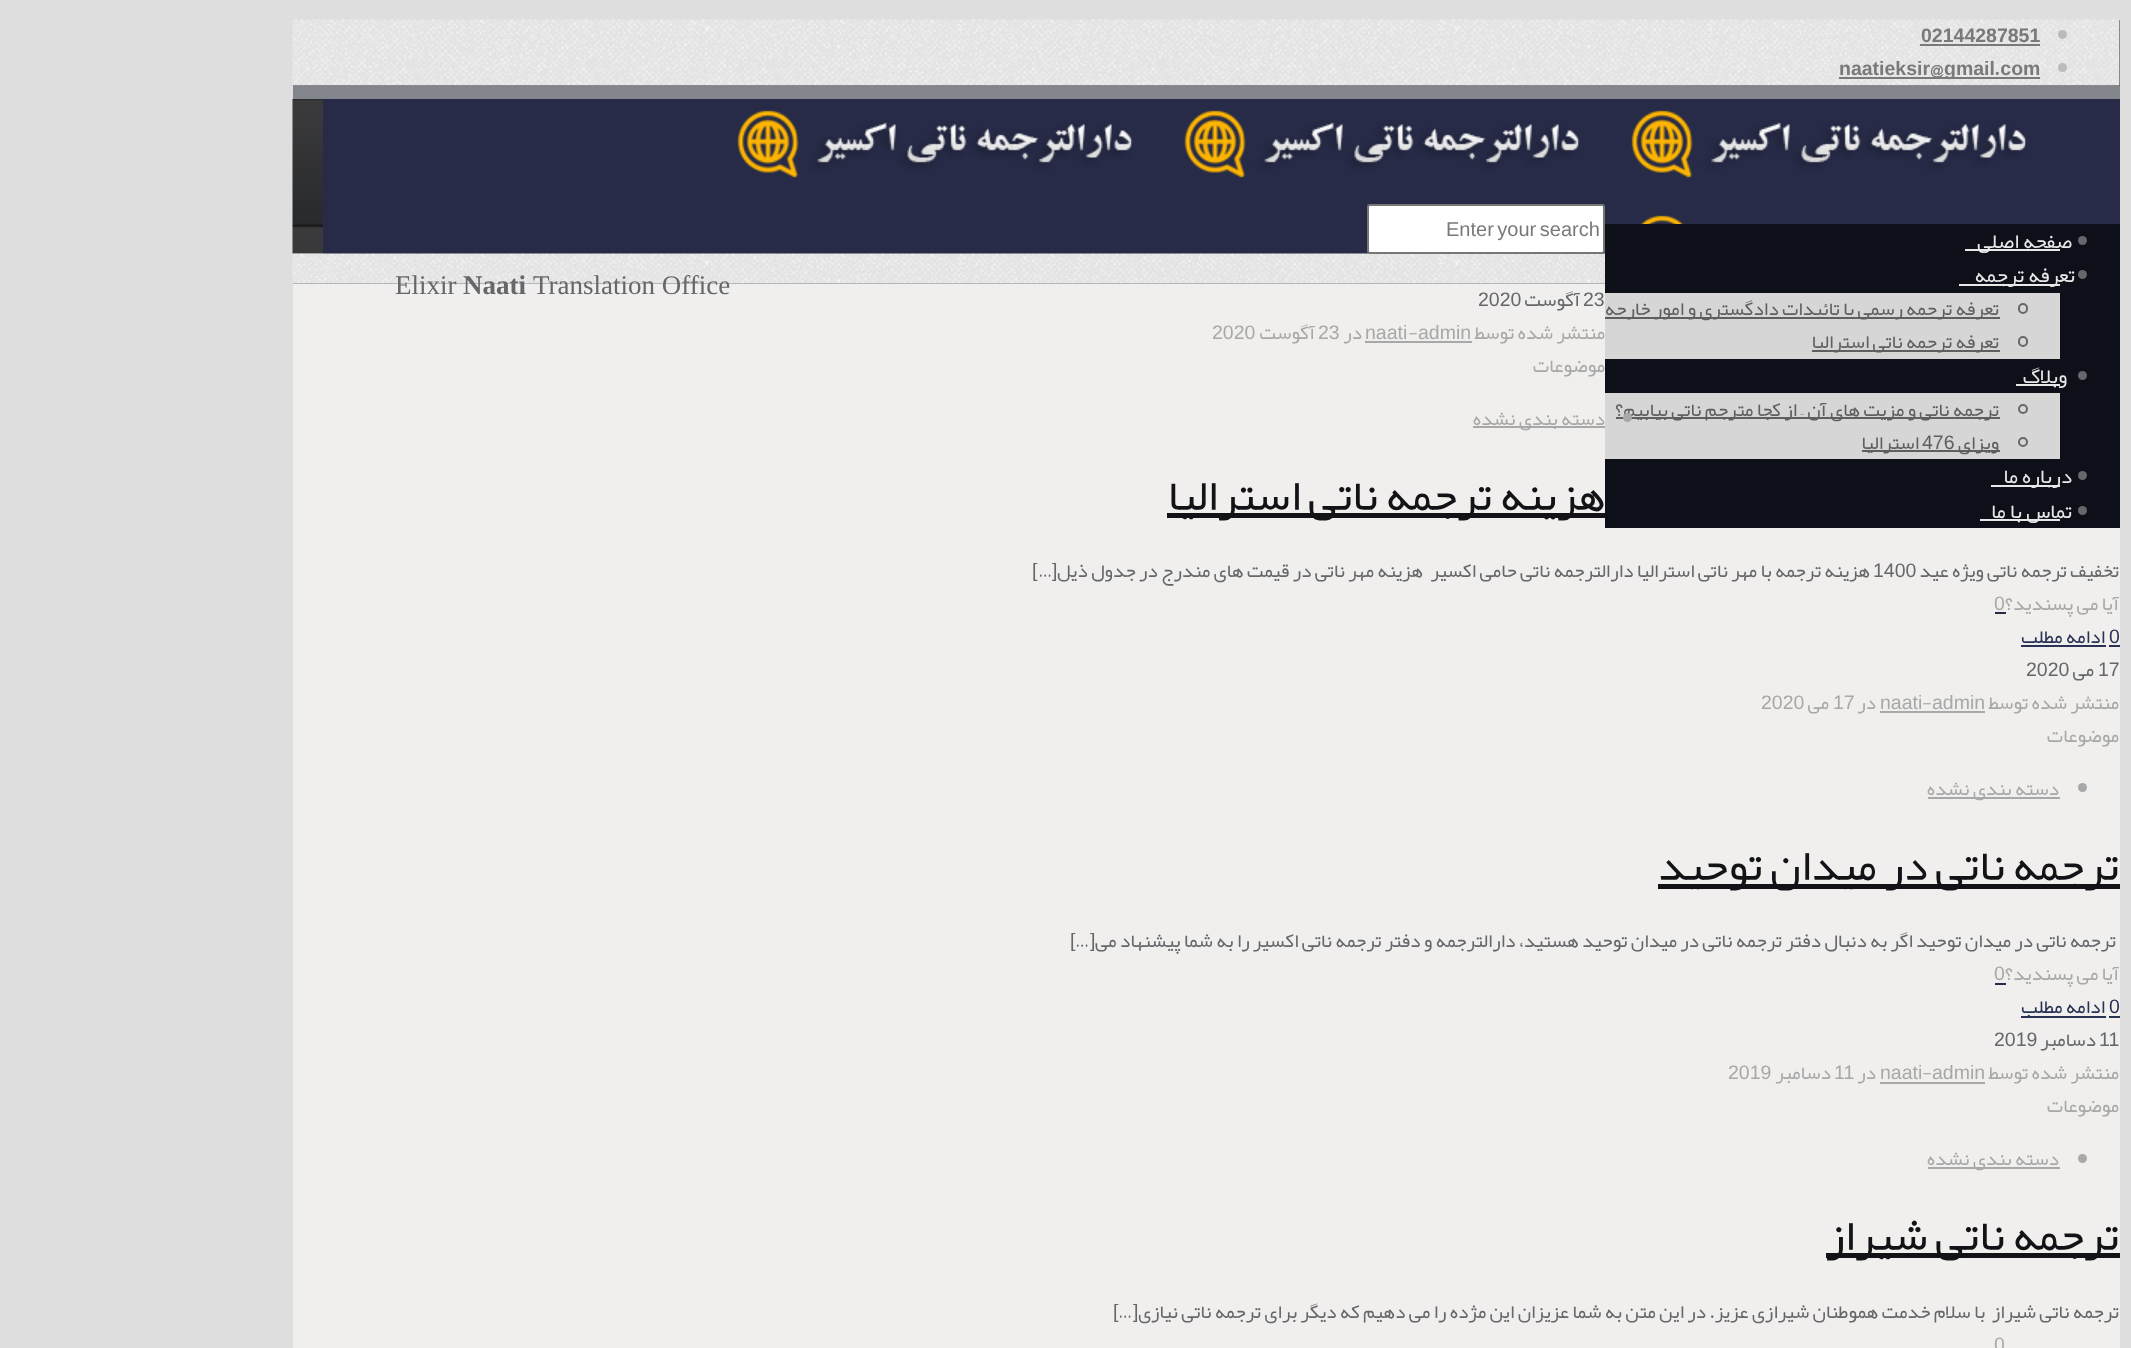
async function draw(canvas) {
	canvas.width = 2131;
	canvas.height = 1348;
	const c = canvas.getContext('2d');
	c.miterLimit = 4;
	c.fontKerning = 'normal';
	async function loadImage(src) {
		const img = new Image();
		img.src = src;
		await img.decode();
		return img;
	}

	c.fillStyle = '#dedede';
	c.fillRect(0, 0, 2131, 1348);
	for (const [x, y, w, h, color] of [
		[293, 284, 1827, 1064, '#f0efed'],
		[293, 86, 1827, 198, '#82858b'],
		[293, 20, 1827, 66, '#2c2c2c'],
	]) {
		c.fillStyle = color;
		c.fillRect(x, y, w, h);
	}
	c.drawImage(await loadImage('img1.png'), 292, 19, 1828, 67);
	c.fillStyle = '#bbb';
	c.beginPath();
	c.arc(2062.5, 34.5, 4.5, 0, 2 * Math.PI);
	c.fill();
	c.font = 'bold 19.5px Liberation Sans';
	c.fillStyle = '#797979';
	c.fillText('02144287851', 1921, 42);
	c.fillRect(1920, 44, 120, 2);
	c.fillStyle = '#bbb';
	c.beginPath();
	c.arc(2062.5, 67.5, 4.5, 0, 2 * Math.PI);
	c.fill();
	c.fillStyle = '#797979';
	c.fillRect(1839, 77, 201, 2);
	c.fillText('gmail com', 1944, 75);
	c.font = 'bold 19.5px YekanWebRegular';
	c.fillText('@', 1930, 75);
	c.font = 'bold 19.5px Liberation Sans';
	c.fillText('naatieksir', 1839, 75);
	c.font = 'bold 19.5px YekanWebRegular';
	c.fillText('.', 1994, 75);
	c.drawImage(await loadImage('img2.png'), 292, 99, 31, 155);
	c.fillStyle = '#272b47';
	c.fillRect(323, 99, 1797, 155);
	c.drawImage(await loadImage('img3.png'), 1631, 110, 396, 68);
	c.drawImage(await loadImage('img4.png'), 1184, 110, 396, 68);
	c.drawImage(await loadImage('img5.png'), 737, 110, 396, 68);
	c.drawImage(await loadImage('img6.png'), 1640, 215, 44, 9);
	c.drawImage(await loadImage('img7.png'), 292, 253, 1313, 31);
	c.fillStyle = '#fff';
	c.beginPath();
	c.roundRect(1368, 205, 236, 48, 2);
	c.fill();
	c.strokeStyle = '#767676';
	c.lineWidth = 2;
	c.stroke();
	c.wordSpacing = '-2px';
	c.font = '20px Liberation Sans';
	c.fillStyle = '#797979';
	c.fillText('Enter your search', 1446, 236);
	c.fillStyle = '#0d0f19';
	c.fillRect(1605, 224, 515, 304);
	c.fillStyle = '#66676b';
	c.beginPath();
	c.arc(2082.5, 240.5, 4.5, 0, 2 * Math.PI);
	c.fill();
	c.fillStyle = '#e8e8e8';
	c.fillRect(1965, 249, 95, 2);
	c.letterSpacing = '1.5px';
	c.wordSpacing = '-1px';
	c.direction = 'rtl';
	c.font = '21px YekanWebRegular';
	c.fillText('صفحه اصلی', 2072, 248);
	c.fillStyle = '#66676b';
	c.beginPath();
	c.arc(2082.5, 274.5, 4.5, 0, 2 * Math.PI);
	c.fill();
	c.fillStyle = '#e8e8e8';
	c.fillRect(1959, 284, 101, 2);
	c.fillText('تعرفه ترجمه', 2075, 282);
	c.fillStyle = '#d6d6d6';
	c.fillRect(1605, 293, 455, 66);
	c.beginPath();
	c.roundRect(2019, 304, 8, 9, 4);
	c.strokeStyle = '#66676b';
	c.stroke();
	c.fillStyle = '#5f5f5f';
	c.fillRect(1605, 317, 395, 2);
	c.letterSpacing = '0px';
	c.wordSpacing = '0px';
	c.font = '19.5px YekanWebRegular';
	c.fillText('تعرفه ترجمه رسمی با تائیدات دادگستری و امور خارجه', 1999, 315);
	c.beginPath();
	c.roundRect(2019, 337, 8, 9, 4);
	c.stroke();
	c.fillRect(1812, 350, 188, 2);
	c.fillText('تعرفه ترجمه ناتی استرالیا', 1999, 348);
	c.fillStyle = '#66676b';
	c.beginPath();
	c.arc(2082.5, 375.5, 4.5, 0, 2 * Math.PI);
	c.fill();
	c.fillStyle = '#e8e8e8';
	c.fillRect(2016, 384, 44, 2);
	c.letterSpacing = '1.5px';
	c.font = '21px YekanWebRegular';
	c.fillText('وبلاگ', 2067, 383);
	c.fillStyle = '#d6d6d6';
	c.fillRect(1605, 393, 455, 66);
	c.beginPath();
	c.arc(2023, 409, 4, 0, 2 * Math.PI);
	c.stroke();
	c.fillStyle = '#5f5f5f';
	c.fillRect(1616, 417, 384, 2);
	c.letterSpacing = '0px';
	c.font = '19.5px YekanWebRegular';
	c.fillText('ترجمه ناتی و مزیت های آن – از کجا مترجم ناتی بیابیم؟', 1999, 416);
	c.beginPath();
	c.arc(2023, 442, 4, 0, 2 * Math.PI);
	c.stroke();
	c.fillRect(1862, 450, 138, 2);
	c.fillText('ویزای', 1999, 449);
	c.direction = 'ltr';
	c.font = '19.5px Liberation Sans';
	c.fillText('476', 1922, 449);
	c.direction = 'rtl';
	c.font = '19.5px YekanWebRegular';
	c.fillText('استرالیا', 1919, 449);
	c.fillStyle = '#66676b';
	c.beginPath();
	c.arc(2082.5, 475.5, 4.5, 0, 2 * Math.PI);
	c.fill();
	c.fillStyle = '#e8e8e8';
	c.fillRect(1991, 485, 69, 2);
	c.letterSpacing = '1.5px';
	c.wordSpacing = '-1px';
	c.font = '21px YekanWebRegular';
	c.fillText('درباره ما', 2072, 483);
	c.fillStyle = '#66676b';
	c.beginPath();
	c.arc(2082.5, 510.5, 4.5, 0, 2 * Math.PI);
	c.fill();
	c.fillStyle = '#e8e8e8';
	c.fillRect(1980, 519, 80, 2);
	c.fillText('تماس با ما', 2072, 518);
	c.letterSpacing = '0px';
	c.wordSpacing = '0px';
	c.direction = 'ltr';
	c.font = '27px Liberation Serif';
	c.fillStyle = '#66676b';
	c.fillText('Translation Office', 533, 294);
	c.font = 'bold 27px Liberation Serif';
	c.fillText('Naati', 463, 294);
	c.font = '27px Liberation Serif';
	c.fillText('Elixir', 395, 294);
	c.font = '19.5px Liberation Sans';
	c.fillText('23', 1583, 306);
	c.direction = 'rtl';
	c.font = '19.5px YekanWebRegular';
	c.fillText('آگوست', 1580, 306);
	c.direction = 'ltr';
	c.font = '19.5px Liberation Sans';
	c.fillText('2020', 1478, 306);
	c.direction = 'rtl';
	c.font = '19.5px YekanWebRegular';
	c.fillStyle = '#a8a8a8';
	c.fillText('منتشر شده توسط', 1605, 339);
	c.fillRect(1365, 341, 107, 2);
	c.direction = 'ltr';
	c.font = '19.5px Liberation Sans';
	c.fillText('admin', 1418, 339);
	c.font = '19.5px YekanWebRegular';
	c.fillText('-', 1408, 339);
	c.font = '19.5px Liberation Sans';
	c.fillText('naati', 1365, 339);
	c.direction = 'rtl';
	c.font = '19.5px YekanWebRegular';
	c.fillText('در', 1362, 339);
	c.direction = 'ltr';
	c.font = '19.5px Liberation Sans';
	c.fillText('23', 1318, 339);
	c.direction = 'rtl';
	c.font = '19.5px YekanWebRegular';
	c.fillText('آگوست', 1315, 339);
	c.direction = 'ltr';
	c.font = '19.5px Liberation Sans';
	c.fillText('2020', 1212, 339);
	c.direction = 'rtl';
	c.font = '19.5px YekanWebRegular';
	c.fillText('موضوعات', 1605, 372);
	c.beginPath();
	c.arc(1627.5, 417.5, 4.5, 0, 2 * Math.PI);
	c.fill();
	c.fillRect(1473, 426, 132, 2);
	c.fillText('دسته بندی نشده', 1605, 425);
	c.fillStyle = '#121217';
	c.fillRect(1167, 513, 438, 5);
	c.font = '45px YekanWebRegular';
	c.fillText('هزینه ترجمه ناتی استرالیا', 1605, 510);
	c.font = '19.5px YekanWebRegular';
	c.fillStyle = '#66676b';
	c.fillText('تخفیف ترجمه ناتی ویژه عید', 2119, 577);
	c.direction = 'ltr';
	c.font = '19.5px Liberation Sans';
	c.fillText('1400', 1873, 577);
	c.direction = 'rtl';
	c.font = '19.5px YekanWebRegular';
	c.fillText('هزینه ترجمه با مهر ناتی استرالیا دارالترجمه ناتی حامی اکسیر', 1870, 577);
	c.fillText('هزینه مهر ناتی در قیمت های مندرج در جدول ذیل', 1423, 577);
	c.direction = 'ltr';
	c.font = '19.5px Liberation Sans';
	c.fillText(']', 1052, 577);
	c.font = '19.5px YekanWebRegular';
	c.fillText('…', 1038, 577);
	c.font = '19.5px Liberation Sans';
	c.fillText('[', 1032, 577);
	c.direction = 'rtl';
	c.font = '19.5px YekanWebRegular';
	c.fillStyle = '#a8a8a8';
	c.fillText('آیا می پسندید؟', 2119, 610);
	c.direction = 'ltr';
	c.font = '19.5px Liberation Sans';
	c.fillText('0', 1994, 610);
	c.fillStyle = '#272b47';
	c.fillRect(1995, 612, 11, 2);
	c.fillStyle = '#273254';
	c.fillText('0', 2109, 643);
	c.fillRect(2109, 645, 11, 2);
	c.fillRect(2021, 645, 85, 2);
	c.direction = 'rtl';
	c.font = '19.5px YekanWebRegular';
	c.fillText('ادامه مطلب', 2105, 643);
	c.direction = 'ltr';
	c.font = '19.5px Liberation Sans';
	c.fillStyle = '#66676b';
	c.fillText('17', 2098, 676);
	c.direction = 'rtl';
	c.font = '19.5px YekanWebRegular';
	c.fillText('می', 2094, 676);
	c.direction = 'ltr';
	c.font = '19.5px Liberation Sans';
	c.fillText('2020', 2026, 676);
	c.direction = 'rtl';
	c.font = '19.5px YekanWebRegular';
	c.fillStyle = '#a8a8a8';
	c.fillText('منتشر شده توسط', 2119, 709);
	c.direction = 'ltr';
	c.font = '19.5px Liberation Sans';
	c.fillText('admin', 1932, 709);
	c.font = '19.5px YekanWebRegular';
	c.fillText('-', 1922, 709);
	c.fillRect(1880, 711, 105, 2);
	c.font = '19.5px Liberation Sans';
	c.fillText('naati', 1880, 709);
	c.direction = 'rtl';
	c.font = '19.5px YekanWebRegular';
	c.fillText('در', 1876, 709);
	c.direction = 'ltr';
	c.font = '19.5px Liberation Sans';
	c.fillText('17', 1833, 709);
	c.direction = 'rtl';
	c.font = '19.5px YekanWebRegular';
	c.fillText('می', 1829, 709);
	c.direction = 'ltr';
	c.font = '19.5px Liberation Sans';
	c.fillText('2020', 1761, 709);
	c.direction = 'rtl';
	c.font = '19.5px YekanWebRegular';
	c.fillText('موضوعات', 2119, 742);
	c.beginPath();
	c.arc(2082.5, 787.5, 4.5, 0, 2 * Math.PI);
	c.fill();
	c.fillRect(1928, 797, 132, 2);
	c.fillText('دسته بندی نشده', 2059, 795);
	c.fillStyle = '#121217';
	c.fillRect(1658, 884, 462, 5);
	c.font = '45px YekanWebRegular';
	c.fillText('ترجمه ناتی در میدان توحید', 2119, 880);
	c.font = '19.5px YekanWebRegular';
	c.fillStyle = '#66676b';
	c.fillText('ترجمه ناتی در میدان توحید اگر به دنبال دفتر ترجمه ناتی در میدان توحید هستید، دارالترجمه و دفتر ترجمه ناتی اکسیر را به شما پیشنهاد می', 2116, 947);
	c.direction = 'ltr';
	c.font = '19.5px Liberation Sans';
	c.fillText(']', 1090, 947);
	c.font = '19.5px YekanWebRegular';
	c.fillText('…', 1075, 947);
	c.font = '19.5px Liberation Sans';
	c.fillText('[', 1070, 947);
	c.direction = 'rtl';
	c.font = '19.5px YekanWebRegular';
	c.fillStyle = '#a8a8a8';
	c.fillText('آیا می پسندید؟', 2119, 980);
	c.direction = 'ltr';
	c.font = '19.5px Liberation Sans';
	c.fillText('0', 1994, 980);
	c.fillStyle = '#272b47';
	c.fillRect(1995, 983, 11, 2);
	c.fillStyle = '#273254';
	c.fillText('0', 2109, 1013);
	c.fillRect(2109, 1016, 11, 2);
	c.fillRect(2021, 1016, 85, 2);
	c.direction = 'rtl';
	c.font = '19.5px YekanWebRegular';
	c.fillText('ادامه مطلب', 2105, 1013);
	c.direction = 'ltr';
	c.font = '19.5px Liberation Sans';
	c.fillStyle = '#66676b';
	c.fillText('11', 2099, 1046);
	c.direction = 'rtl';
	c.font = '19.5px YekanWebRegular';
	c.fillText('دسامبر', 2096, 1046);
	c.direction = 'ltr';
	c.font = '19.5px Liberation Sans';
	c.fillText('2019', 1994, 1046);
	c.direction = 'rtl';
	c.font = '19.5px YekanWebRegular';
	c.fillStyle = '#a8a8a8';
	c.fillText('منتشر شده توسط', 2119, 1079);
	c.direction = 'ltr';
	c.font = '19.5px Liberation Sans';
	c.fillText('admin', 1932, 1079);
	c.font = '19.5px YekanWebRegular';
	c.fillText('-', 1922, 1079);
	c.fillRect(1880, 1082, 105, 2);
	c.font = '19.5px Liberation Sans';
	c.fillText('naati', 1880, 1079);
	c.direction = 'rtl';
	c.font = '19.5px YekanWebRegular';
	c.fillText('در', 1876, 1079);
	c.direction = 'ltr';
	c.font = '19.5px Liberation Sans';
	c.fillText('11', 1834, 1079);
	c.direction = 'rtl';
	c.font = '19.5px YekanWebRegular';
	c.fillText('دسامبر', 1831, 1079);
	c.direction = 'ltr';
	c.font = '19.5px Liberation Sans';
	c.fillText('2019', 1728, 1079);
	c.direction = 'rtl';
	c.font = '19.5px YekanWebRegular';
	c.fillText('موضوعات', 2119, 1112);
	c.beginPath();
	c.arc(2082.5, 1158.5, 4.5, 0, 2 * Math.PI);
	c.fill();
	c.fillRect(1928, 1167, 132, 2);
	c.fillText('دسته بندی نشده', 2059, 1165);
	c.fillStyle = '#121217';
	c.fillRect(1826, 1253, 294, 5);
	c.font = '45px YekanWebRegular';
	c.fillText('ترجمه ناتی شیراز', 2119, 1250);
	c.font = '19.5px YekanWebRegular';
	c.fillStyle = '#66676b';
	c.fillText('ترجمه ناتی شیراز  با سلام خدمت هموطنان شیرازی عزیز. در این متن به شما عزیزان این مژده را می دهیم که دیگر برای ترجمه ناتی نیازی', 2119, 1318);
	c.direction = 'ltr';
	c.font = '19.5px Liberation Sans';
	c.fillText(']', 1133, 1318);
	c.font = '19.5px YekanWebRegular';
	c.fillText('…', 1118, 1318);
	c.font = '19.5px Liberation Sans';
	c.fillText('[', 1113, 1318);
	c.fillStyle = '#a8a8a8';
	c.fillText('0', 1994, 1351);
}

draw(document.querySelector('canvas'));
